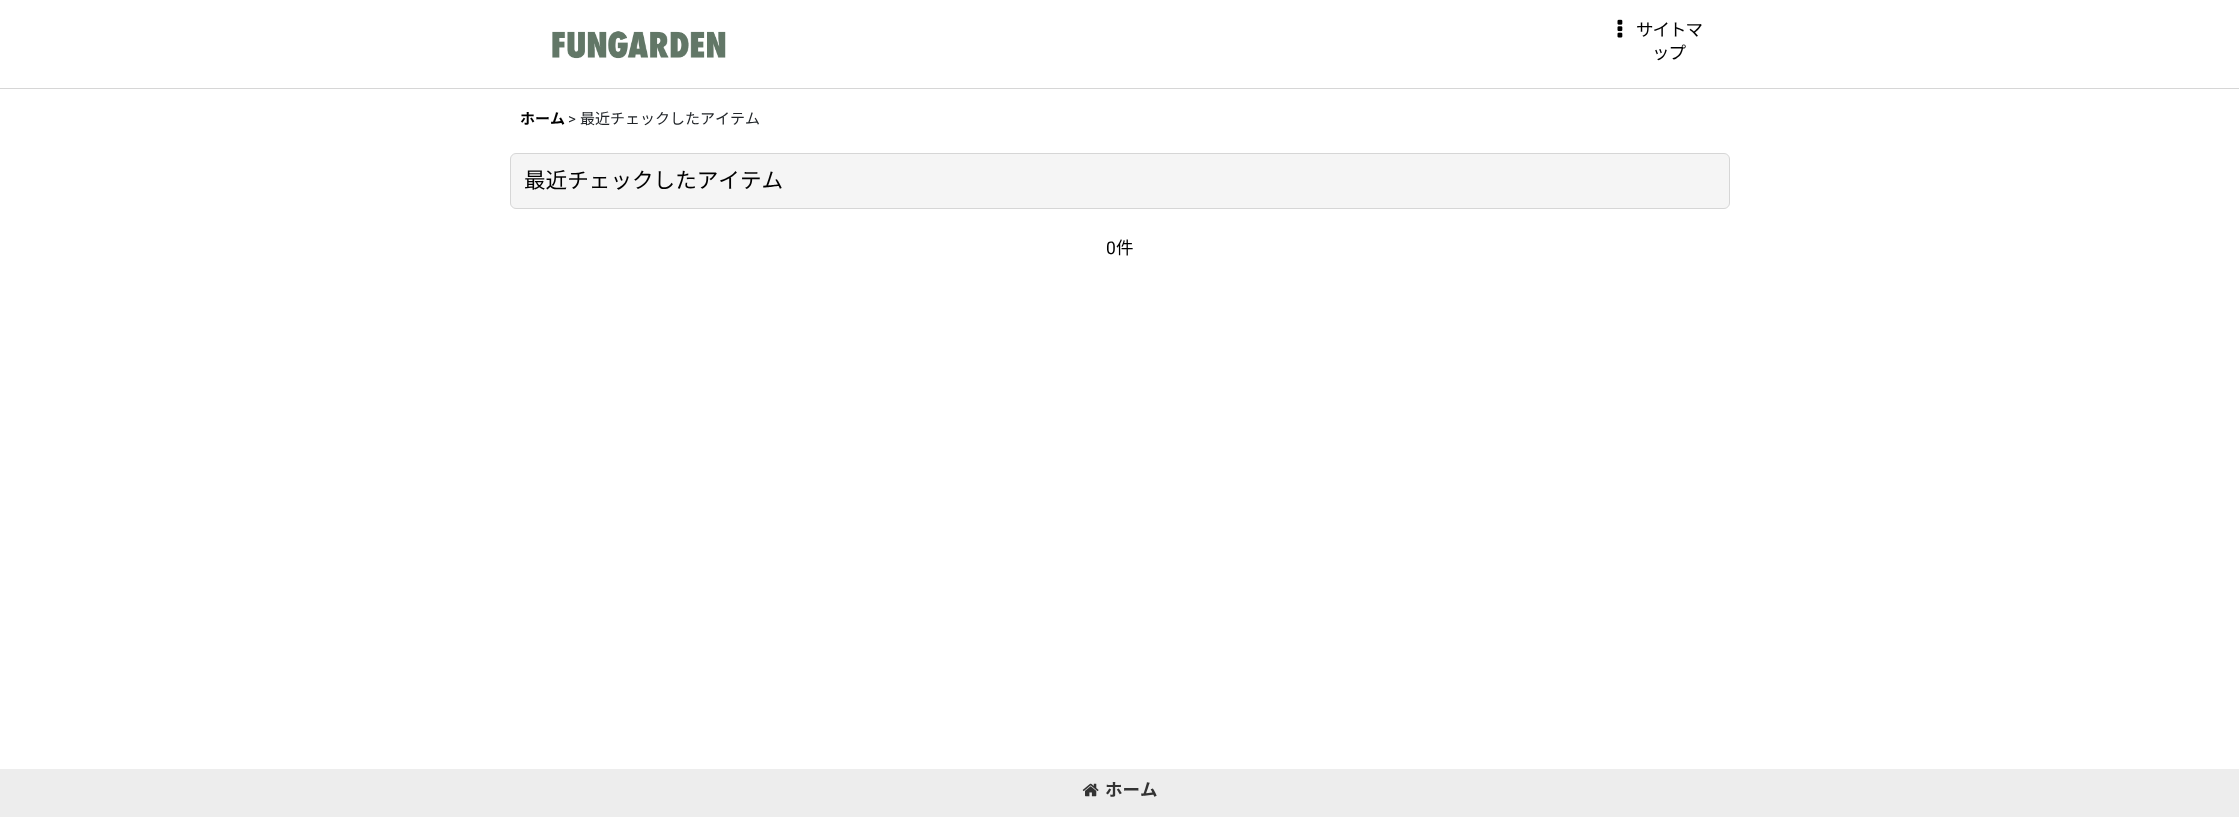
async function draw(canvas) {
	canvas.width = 2239;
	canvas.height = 817;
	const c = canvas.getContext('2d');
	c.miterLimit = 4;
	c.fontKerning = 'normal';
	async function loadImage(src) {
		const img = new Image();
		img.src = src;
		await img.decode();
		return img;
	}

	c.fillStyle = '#fff';
	c.fillRect(0, 0, 2239, 817);
	c.fillStyle = '#d6d6d6';
	c.fillRect(0, 88, 2239, 1);
	c.drawImage(await loadImage('img1.png'), 552, 31, 174, 28);
	c.drawImage(await loadImage('img2.png'), 1617, 19, 6, 19);
	c.letterSpacing = '-1px';
	c.font = '17.5px Noto Sans JP';
	c.fillStyle = '#000';
	c.fillText('サイトマ', 1636, 36);
	c.fillText('ップ', 1652, 59);
	c.letterSpacing = '0px';
	c.font = 'bold 15px Noto Sans JP';
	c.fillText('ホーム', 520, 124);
	c.font = '15px Roboto';
	c.fillStyle = '#212529';
	c.fillText('>', 568, 124);
	c.font = '15px Noto Sans JP';
	c.fillText('最近チェックしたアイテム', 580, 124);
	c.fillStyle = '#f5f5f5';
	c.beginPath();
	c.roundRect(510.5, 153.5, 1219, 55, 5.5);
	c.fill();
	c.strokeStyle = '#d6d6d6';
	c.stroke();
	c.font = '21.6px Noto Sans JP';
	c.fillStyle = '#000';
	c.fillText('最近チェックしたアイテム', 524, 188);
	c.font = '17.5px Roboto';
	c.fillText('0', 1106, 254);
	c.font = '17.5px Noto Sans JP';
	c.fillText('件', 1116, 254);
	c.fillStyle = '#ededed';
	c.fillRect(0, 769, 2239, 48);
	c.drawImage(await loadImage('img3.png'), 1082, 783, 17, 14);
	c.font = 'bold 17.5px Noto Sans JP';
	c.fillStyle = '#333';
	c.fillText('ホーム', 1105, 796);
}

draw(document.querySelector('canvas'));
